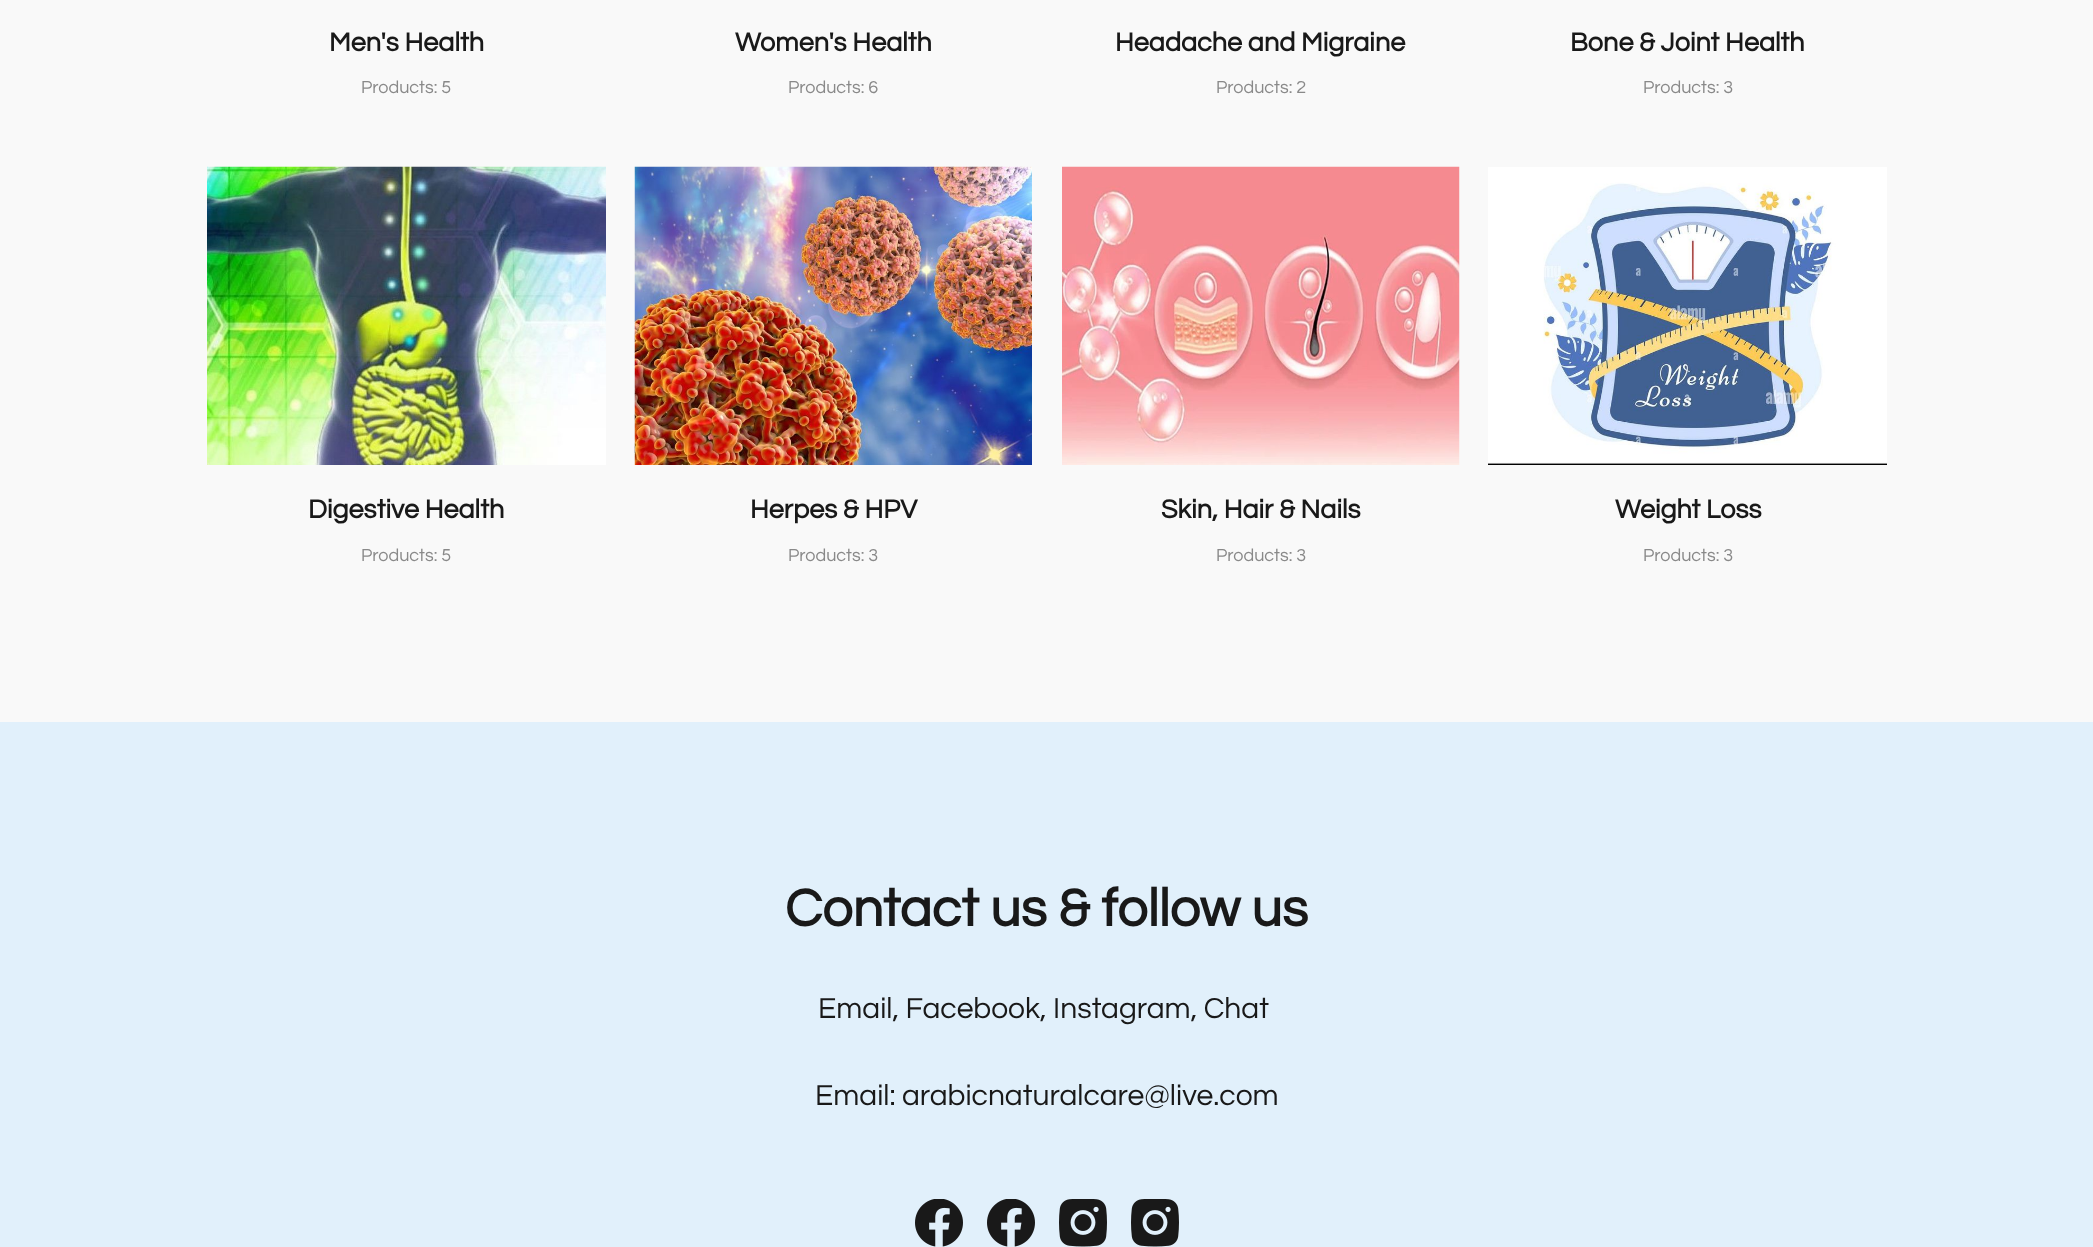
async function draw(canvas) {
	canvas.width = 2093;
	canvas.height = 1247;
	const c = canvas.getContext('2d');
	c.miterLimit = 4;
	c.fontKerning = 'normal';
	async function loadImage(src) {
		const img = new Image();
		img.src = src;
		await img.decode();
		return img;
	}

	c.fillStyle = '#f9f9f9';
	c.fillRect(0, 0, 2093, 1247);
	c.font = 'bold 27px Questrial';
	c.fillStyle = '#191919';
	c.fillText('Men\'s Health', 329, 51);
	c.font = '18px Questrial';
	c.fillStyle = '#898989';
	c.fillText('Products: 5', 361, 93);
	c.font = 'bold 27px Questrial';
	c.fillStyle = '#191919';
	c.fillText('Women\'s Health', 735, 51);
	c.font = '18px Questrial';
	c.fillStyle = '#898989';
	c.fillText('Products: 6', 788, 93);
	c.font = 'bold 27px Questrial';
	c.fillStyle = '#191919';
	c.fillText('Headache and Migraine', 1115, 51);
	c.font = '18px Questrial';
	c.fillStyle = '#898989';
	c.fillText('Products: 2', 1216, 93);
	c.font = 'bold 27px Questrial';
	c.fillStyle = '#191919';
	c.fillText('Bone & Joint Health', 1570, 51);
	c.font = '18px Questrial';
	c.fillStyle = '#898989';
	c.fillText('Products: 3', 1643, 93);
	c.drawImage(await loadImage('img1.png'), 207, 166, 399, 299);
	c.font = 'bold 27px Questrial';
	c.fillStyle = '#191919';
	c.fillText('Digestive Health', 308, 518);
	c.font = '18px Questrial';
	c.fillStyle = '#898989';
	c.fillText('Products: 5', 361, 561);
	c.drawImage(await loadImage('img2.png'), 634, 166, 398, 299);
	c.font = 'bold 27px Questrial';
	c.fillStyle = '#191919';
	c.fillText('Herpes & HPV', 750, 518);
	c.font = '18px Questrial';
	c.fillStyle = '#898989';
	c.fillText('Products: 3', 788, 561);
	c.drawImage(await loadImage('img3.png'), 1062, 166, 398, 299);
	c.font = 'bold 27px Questrial';
	c.fillStyle = '#191919';
	c.fillText('Skin, Hair & Nails', 1161, 518);
	c.font = '18px Questrial';
	c.fillStyle = '#898989';
	c.fillText('Products: 3', 1216, 561);
	c.drawImage(await loadImage('img4.png'), 1488, 167, 399, 298);
	c.font = 'bold 27px Questrial';
	c.fillStyle = '#191919';
	c.fillText('Weight Loss', 1615, 518);
	c.font = '18px Questrial';
	c.fillStyle = '#898989';
	c.fillText('Products: 3', 1643, 561);
	c.fillStyle = '#e1f0fb';
	c.fillRect(0, 722, 2093, 525);
	c.font = 'bold 54px Questrial';
	c.fillStyle = '#191919';
	c.fillText('Contact us & follow us', 785, 926);
	c.font = '30px Questrial';
	c.fillText('Email, Facebook, Instagram, Chat', 818, 1018);
	c.fillText('Email: arabicnaturalcare@live.com', 815, 1105);
	c.drawImage(await loadImage('img5.png'), 915, 1199, 48, 48);
	c.drawImage(await loadImage('img5.png'), 987, 1199, 48, 48);
	c.drawImage(await loadImage('img6.png'), 1059, 1199, 48, 48);
	c.drawImage(await loadImage('img6.png'), 1131, 1199, 48, 48);
}

draw(document.querySelector('canvas'));
